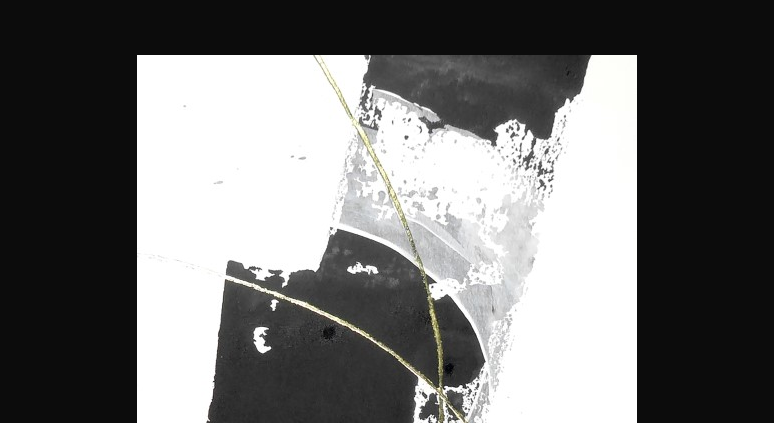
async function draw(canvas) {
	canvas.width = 774;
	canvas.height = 423;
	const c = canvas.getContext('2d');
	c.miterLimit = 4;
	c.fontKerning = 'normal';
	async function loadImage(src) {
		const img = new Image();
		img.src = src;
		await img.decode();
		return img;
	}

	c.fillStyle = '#0c0c0c';
	c.fillRect(0, 0, 774, 423);
	c.drawImage(await loadImage('img1.png'), 137, 55, 500, 368);
}

draw(document.querySelector('canvas'));
